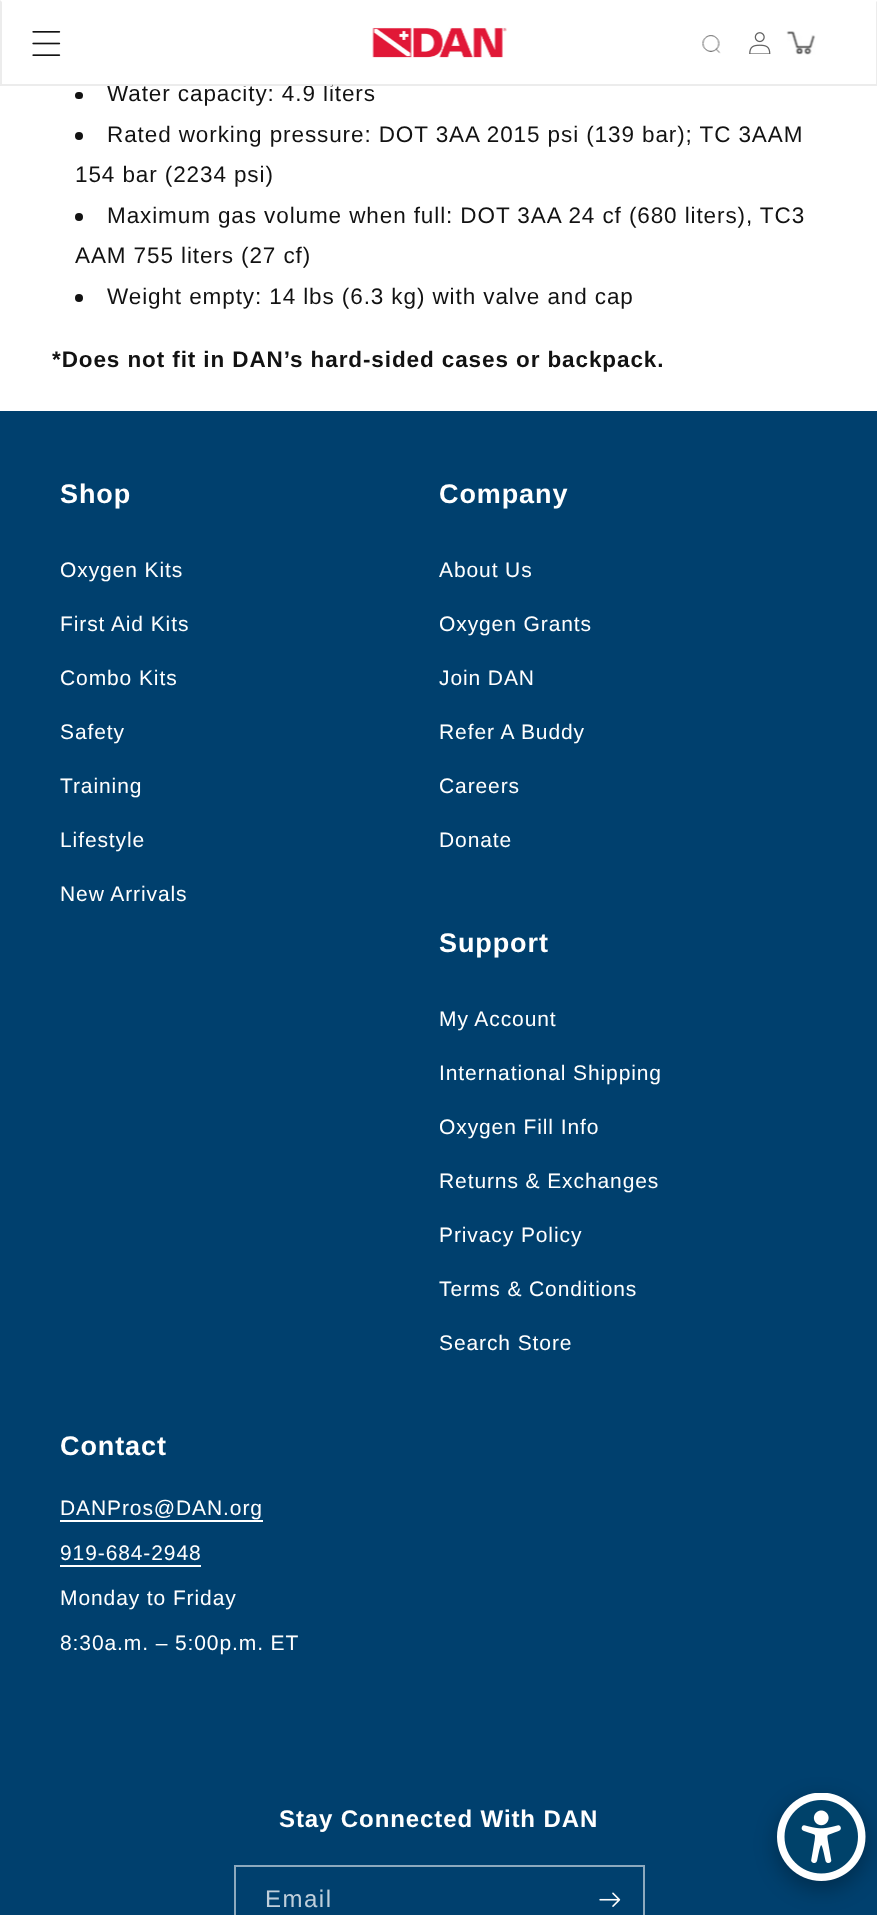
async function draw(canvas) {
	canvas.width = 877;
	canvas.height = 1915;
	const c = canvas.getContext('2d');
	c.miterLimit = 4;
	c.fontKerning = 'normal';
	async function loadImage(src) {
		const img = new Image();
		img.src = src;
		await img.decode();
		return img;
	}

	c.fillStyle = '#fff';
	c.fillRect(0, 0, 877, 1915);
	c.letterSpacing = '0.9px';
	c.font = '22.5px Liberation Sans';
	c.fillStyle = '#121212';
	c.fillText('Water capacity: 4.9 liters', 107, 101);
	c.fillStyle = '#fff';
	c.fillRect(106, 84, 226, 2);
	c.fillStyle = '#ececec';
	c.beginPath();
	c.moveTo(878, 0);
	c.lineTo(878, 86);
	c.lineTo(876, 84);
	c.lineTo(876, 2);
	c.closePath();
	c.fill();
	c.fillStyle = '#12121214';
	c.beginPath();
	c.moveTo(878, 86);
	c.lineTo(0, 86);
	c.lineTo(2, 84);
	c.lineTo(876, 84);
	c.closePath();
	c.fill();
	c.beginPath();
	c.moveTo(0, 86);
	c.lineTo(0, 0);
	c.lineTo(2, 2);
	c.lineTo(2, 84);
	c.closePath();
	c.fill();
	c.drawImage(await loadImage('img1.png'), 32, 31, 29, 25);
	c.drawImage(await loadImage('img2.png'), 372, 27, 135, 31);
	c.drawImage(await loadImage('img3.png'), 702, 35, 19, 19);
	c.drawImage(await loadImage('img4.png'), 749, 32, 22, 22);
	c.drawImage(await loadImage('img5.png'), 786, 31, 30, 24);
	c.fillStyle = '#121212';
	c.beginPath();
	c.roundRect(75, 92, 8, 7, 3.5);
	c.fill();
	c.beginPath();
	c.arc(79, 136, 4, 0, 2 * Math.PI);
	c.fill();
	c.fillText('Rated working pressure: DOT 3AA 2015 psi (139 bar); TC 3AAM', 107, 142);
	c.fillText('154 bar (2234 psi)', 75, 182);
	c.beginPath();
	c.arc(79, 217, 4, 0, 2 * Math.PI);
	c.fill();
	c.fillText('Maximum gas volume when full: DOT 3AA 24 cf (680 liters), TC3', 107, 223);
	c.fillText('AAM 755 liters (27 cf)', 75, 263);
	c.beginPath();
	c.arc(79, 298, 4, 0, 2 * Math.PI);
	c.fill();
	c.fillText('Weight empty: 14 lbs (6.3 kg) with valve and cap', 107, 304);
	c.font = 'bold 22.5px Liberation Sans';
	c.fillText('*Does not fit in DAN’s hard-sided cases or backpack.', 52, 367);
	c.fillStyle = '#00406e';
	c.fillRect(0, 411, 877, 1504);
	c.font = 'bold 27px Liberation Sans';
	c.fillStyle = '#fff';
	c.fillText('Shop', 60, 503);
	c.font = '21px Liberation Sans';
	for (const [text, x, y] of [
		['Oxygen Kits', 60, 577],
		['First Aid Kits', 60, 631],
		['Combo Kits', 60, 685],
		['Safety', 60, 739],
		['Training', 60, 793],
		['Lifestyle', 60, 847],
		['New Arrivals', 60, 901],
	]) {
		c.fillText(text, x, y);
	}
	c.font = 'bold 27px Liberation Sans';
	c.fillText('Company', 439, 503);
	c.font = '21px Liberation Sans';
	for (const [text, x, y] of [
		['About Us', 439, 577],
		['Oxygen Grants', 439, 631],
		['Join DAN', 439, 685],
		['Refer A Buddy', 439, 739],
		['Careers', 439, 793],
		['Donate', 439, 847],
	]) {
		c.fillText(text, x, y);
	}
	c.font = 'bold 27px Liberation Sans';
	c.fillText('Support', 439, 952);
	c.font = '21px Liberation Sans';
	for (const [text, x, y] of [
		['My Account', 439, 1026],
		['International Shipping', 439, 1080],
		['Oxygen Fill Info', 439, 1134],
		['Returns & Exchanges', 439, 1188],
		['Privacy Policy', 439, 1242],
		['Terms & Conditions', 439, 1296],
		['Search Store', 439, 1350],
	]) {
		c.fillText(text, x, y);
	}
	c.font = 'bold 27px Liberation Sans';
	c.fillText('Contact', 60, 1455);
	c.font = '21px Liberation Sans';
	c.fillText('DANPros@DAN.org', 60, 1515);
	c.fillRect(60, 1520, 203, 2);
	c.fillText('919-684-2948', 60, 1560);
	c.fillRect(60, 1565, 141, 2);
	c.fillText('Monday to Friday', 60, 1605);
	c.fillText('8:30a.m. – 5:00p.m. ET', 60, 1650);
	c.font = 'bold 24px Liberation Sans';
	c.fillText('Stay Connected With DAN', 279, 1827);
	c.strokeStyle = '#8ca9be';
	c.lineWidth = 2;
	c.strokeRect(235, 1866, 409, 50);
	c.letterSpacing = '1.5px';
	c.font = '24px Liberation Sans';
	c.fillStyle = '#bfcfdb';
	c.fillText('Email', 265, 1907);
	c.drawImage(await loadImage('img6.png'), 599, 1892, 22, 15);
	c.fillStyle = '#0000004d';
	c.filter = 'blur(11px)';
	c.beginPath();
	c.roundRect(777, 1800, 89, 89, 44.5);
	c.fill();
	c.filter = 'none';
	c.drawImage(await loadImage('img7.png'), 777, 1793, 89, 88);
}

draw(document.querySelector('canvas'));
